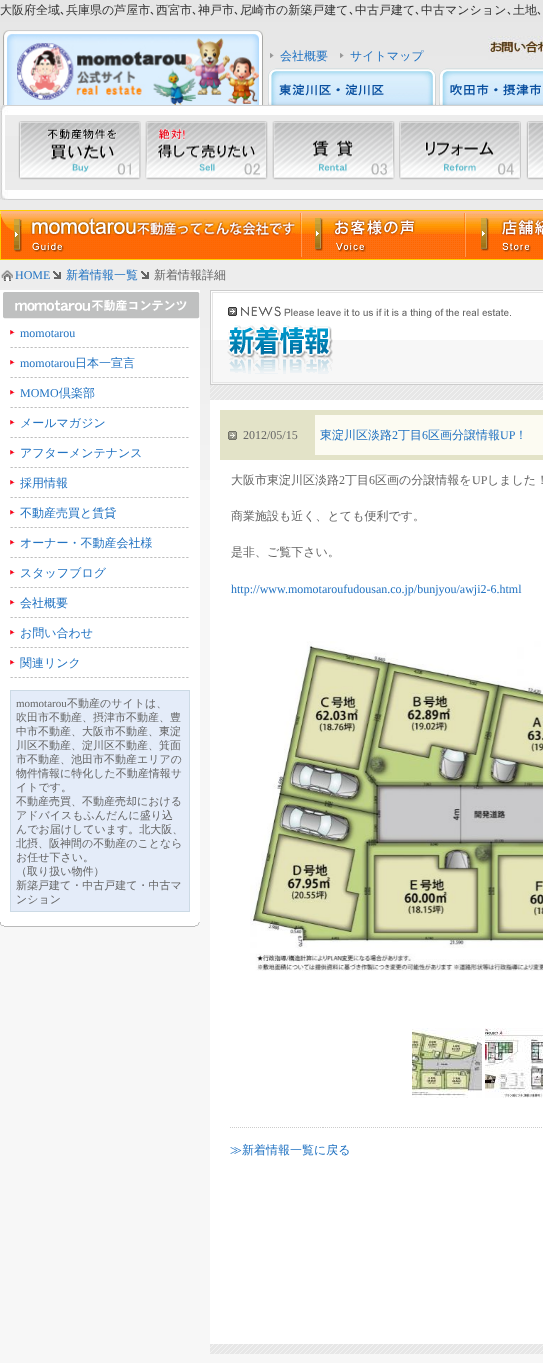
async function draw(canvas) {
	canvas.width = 543;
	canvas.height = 1363;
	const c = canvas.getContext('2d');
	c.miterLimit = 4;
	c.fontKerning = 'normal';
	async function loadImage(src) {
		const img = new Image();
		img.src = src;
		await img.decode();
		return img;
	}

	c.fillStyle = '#f7f7f7';
	c.fillRect(0, 0, 543, 1363);
	c.drawImage(await loadImage('img1.png'), 0, 0, 543, 480);
	c.font = '500 12px WenQuanYi Zen Hei';
	c.fillStyle = '#333';
	c.fillText('大阪府全域', 0, 14);
	c.font = '12px IPAGothic';
	c.fillText('､', 60, 14);
	c.font = '500 12px WenQuanYi Zen Hei';
	c.fillText('兵庫県の芦屋市', 66, 14);
	c.font = '12px IPAGothic';
	c.fillText('､', 150, 14);
	c.font = '500 12px WenQuanYi Zen Hei';
	c.fillText('西宮市', 156, 14);
	c.font = '12px IPAGothic';
	c.fillText('､', 192, 14);
	c.font = '500 12px WenQuanYi Zen Hei';
	c.fillText('神戸市', 198, 14);
	c.font = '12px IPAGothic';
	c.fillText('､', 234, 14);
	c.font = '500 12px WenQuanYi Zen Hei';
	c.fillText('尼崎市の新築戸建て', 240, 14);
	c.font = '12px IPAGothic';
	c.fillText('､', 349, 14);
	c.font = '500 12px WenQuanYi Zen Hei';
	c.fillText('中古戸建て', 355, 14);
	c.font = '12px IPAGothic';
	c.fillText('､', 415, 14);
	c.font = '500 12px WenQuanYi Zen Hei';
	c.fillText('中古マンション', 421, 14);
	c.font = '12px IPAGothic';
	c.fillText('､', 507, 14);
	c.font = '500 12px WenQuanYi Zen Hei';
	c.fillText('土地', 513, 14);
	c.font = '12px IPAGothic';
	c.fillText('､', 537, 14);
	c.drawImage(await loadImage('img2.png'), 488, 36, 55, 24);
	c.drawImage(await loadImage('img3.png'), 1, 30, 264, 75);
	c.drawImage(await loadImage('img4.png'), 270, 53, 4, 5);
	c.font = '500 12px WenQuanYi Zen Hei';
	c.fillStyle = '#2273c2';
	c.fillText('会社概要', 280, 60);
	c.drawImage(await loadImage('img4.png'), 340, 53, 4, 5);
	c.fillText('サイトマップ', 350, 60);
	c.drawImage(await loadImage('img5.png'), 268, 68, 168, 37);
	c.drawImage(await loadImage('img6.png'), 439, 68, 104, 37);
	c.drawImage(await loadImage('img7.png'), 0, 105, 543, 10);
	c.drawImage(await loadImage('img8.png'), 0, 115, 5, 75);
	c.fillStyle = '#ececec';
	c.fillRect(5, 115, 538, 21);
	c.drawImage(await loadImage('img9.png'), 18, 121, 123, 59);
	c.drawImage(await loadImage('img10.png'), 145, 121, 123, 59);
	c.drawImage(await loadImage('img11.png'), 272, 121, 123, 59);
	c.drawImage(await loadImage('img12.png'), 399, 121, 122, 59);
	c.drawImage(await loadImage('img13.png'), 526, 121, 17, 59);
	c.drawImage(await loadImage('img14.png'), 0, 190, 543, 10);
	c.drawImage(await loadImage('img15.png'), 0, 210, 301, 50);
	c.drawImage(await loadImage('img16.png'), 301, 210, 164, 50);
	c.drawImage(await loadImage('img17.png'), 465, 210, 78, 50);
	c.drawImage(await loadImage('img18.png'), 1, 270, 12, 11);
	c.font = '12px Liberation Serif';
	c.fillStyle = '#2273c2';
	c.fillText('HOME', 15, 279);
	c.drawImage(await loadImage('img19.png'), 53, 271, 8, 8);
	c.font = '500 12px WenQuanYi Zen Hei';
	c.fillText('新着情報一覧', 66, 279);
	c.drawImage(await loadImage('img19.png'), 141, 271, 8, 8);
	c.fillStyle = '#666';
	c.fillText('新着情報詳細', 154, 279);
	c.drawImage(await loadImage('img20.png'), 0, 290, 200, 30);
	c.fillStyle = '#fff';
	c.fillRect(0, 320, 200, 602);
	c.drawImage(await loadImage('img21.png'), 10, 330, 5, 5);
	c.font = '12px Liberation Serif';
	c.fillStyle = '#2273c2';
	c.fillText('momotarou', 20, 337);
	c.drawImage(await loadImage('img22.png'), 10, 347, 179, 1);
	c.drawImage(await loadImage('img21.png'), 10, 360, 5, 5);
	c.fillText('momotarou', 20, 367);
	c.font = '500 12px WenQuanYi Zen Hei';
	c.fillText('日本一宣言', 75, 367);
	c.drawImage(await loadImage('img22.png'), 10, 377, 179, 1);
	c.drawImage(await loadImage('img21.png'), 10, 390, 5, 5);
	c.font = '12px Liberation Serif';
	c.fillText('MOMO', 20, 397);
	c.font = '500 12px WenQuanYi Zen Hei';
	c.fillText('倶楽部', 59, 397);
	c.drawImage(await loadImage('img22.png'), 10, 407, 179, 1);
	c.drawImage(await loadImage('img21.png'), 10, 420, 5, 5);
	c.fillText('メールマガジン', 20, 427);
	c.drawImage(await loadImage('img22.png'), 10, 437, 179, 1);
	c.drawImage(await loadImage('img21.png'), 10, 450, 5, 5);
	c.fillText('アフターメンテナンス', 20, 457);
	c.drawImage(await loadImage('img22.png'), 10, 467, 179, 1);
	c.drawImage(await loadImage('img21.png'), 10, 480, 5, 5);
	c.fillText('採用情報', 20, 487);
	c.drawImage(await loadImage('img22.png'), 10, 497, 179, 1);
	c.drawImage(await loadImage('img21.png'), 10, 510, 5, 5);
	c.fillText('不動産売買と賃貸', 20, 517);
	c.drawImage(await loadImage('img22.png'), 10, 527, 179, 1);
	c.drawImage(await loadImage('img21.png'), 10, 540, 5, 5);
	c.fillText('オーナー・不動産会社様', 20, 547);
	c.drawImage(await loadImage('img22.png'), 10, 557, 179, 1);
	c.drawImage(await loadImage('img21.png'), 10, 570, 5, 5);
	c.fillText('スタッフブログ', 20, 577);
	c.drawImage(await loadImage('img22.png'), 10, 587, 179, 1);
	c.drawImage(await loadImage('img21.png'), 10, 600, 5, 5);
	c.fillText('会社概要', 20, 607);
	c.drawImage(await loadImage('img22.png'), 10, 617, 179, 1);
	c.drawImage(await loadImage('img21.png'), 10, 630, 5, 5);
	c.fillText('お問い合わせ', 20, 637);
	c.drawImage(await loadImage('img22.png'), 10, 647, 179, 1);
	c.drawImage(await loadImage('img21.png'), 10, 660, 5, 5);
	c.fillText('関連リンク', 20, 667);
	c.drawImage(await loadImage('img22.png'), 10, 677, 179, 1);
	c.fillStyle = '#ccdae5';
	c.fillRect(10, 690, 180, 222);
	c.fillStyle = '#e4ecf9';
	c.fillRect(11, 691, 178, 220);
	c.font = '11px Liberation Serif';
	c.fillStyle = '#666';
	c.fillText('momotarou', 16, 707);
	c.font = '500 11px WenQuanYi Zen Hei';
	for (const [text, x, y] of [
		['不動産のサイトは、', 67, 707],
		['吹田市不動産、摂津市不動産、豊', 16, 721],
		['中市不動産、大阪市不動産、東淀', 16, 735],
		['川区不動産、淀川区不動産、箕面', 16, 749],
		['市不動産、池田市不動産エリアの', 16, 763],
		['物件情報に特化した不動産情報サ', 16, 777],
		['イトです。', 16, 791],
		['不動産売買、不動産売却における', 16, 805],
		['アドバイスもふんだんに盛り込', 16, 819],
		['んでお届けしています。北大阪、', 16, 833],
		['北摂、阪神間の不動産のことなら', 16, 847],
		['お任せ下さい。', 16, 861],
		['（取り扱い物件）', 16, 875],
		['新築戸建て・中古戸建て・中古マ', 16, 889],
		['ンション', 16, 903],
	]) {
		c.fillText(text, x, y);
	}
	c.drawImage(await loadImage('img23.png'), 0, 922, 200, 5);
	c.fillStyle = '#fff';
	c.fillRect(210, 400, 333, 944);
	c.drawImage(await loadImage('img24.png'), 210, 290, 333, 95);
	c.drawImage(await loadImage('img25.png'), 210, 385, 333, 15);
	c.fillStyle = '#e3e3c8';
	c.fillRect(220, 410, 323, 50);
	c.drawImage(await loadImage('img26.png'), 228, 431, 9, 9);
	c.font = '12px Liberation Serif';
	c.fillStyle = '#666';
	c.fillText('2012/05/15', 243, 439);
	c.fillStyle = '#fcfbf2';
	c.fillRect(315, 415, 228, 40);
	c.font = '500 12px WenQuanYi Zen Hei';
	c.fillStyle = '#2273c2';
	c.fillText('東淀川区淡路', 320, 439);
	c.font = '12px Liberation Serif';
	c.fillText('2', 392, 439);
	c.font = '500 12px WenQuanYi Zen Hei';
	c.fillText('丁目', 398, 439);
	c.font = '12px Liberation Serif';
	c.fillText('6', 422, 439);
	c.font = '500 12px WenQuanYi Zen Hei';
	c.fillText('区画分譲情報', 428, 439);
	c.font = '12px Liberation Serif';
	c.fillText('UP', 500, 439);
	c.font = '500 12px WenQuanYi Zen Hei';
	c.fillText('！', 515, 439);
	c.fillStyle = '#666';
	c.fillText('大阪市東淀川区淡路', 231, 484);
	c.font = '12px Liberation Serif';
	c.fillText('2', 339, 484);
	c.font = '500 12px WenQuanYi Zen Hei';
	c.fillText('丁目', 345, 484);
	c.font = '12px Liberation Serif';
	c.fillText('6', 369, 484);
	c.font = '500 12px WenQuanYi Zen Hei';
	c.fillText('区画の分譲情報を', 375, 484);
	c.font = '12px Liberation Serif';
	c.fillText('UP', 472, 484);
	c.font = '500 12px WenQuanYi Zen Hei';
	for (const [text, x, y] of [
		['しました！', 487, 484],
		['商業施設も近く、とても便利です。', 231, 520],
		['是非、ご覧下さい。', 231, 556],
	]) {
		c.fillText(text, x, y);
	}
	c.font = '12px Liberation Serif';
	c.fillStyle = '#2273c2';
	c.fillText('http://www.momotaroufudousan.co.jp/bunjyou/awji2-6.html', 231, 593);
	c.drawImage(await loadImage('img27.png'), 250, 641, 293, 330);
	c.drawImage(await loadImage('img28.png'), 412, 1028, 70, 70);
	c.drawImage(await loadImage('img29.png'), 485, 1028, 58, 70);
	c.drawImage(await loadImage('img30.png'), 230, 1127, 312, 1);
	c.font = '500 12px WenQuanYi Zen Hei';
	c.fillText('≫新着情報一覧に戻る', 230, 1154);
	c.drawImage(await loadImage('img31.png'), 210, 1344, 333, 10);
}

draw(document.querySelector('canvas'));
